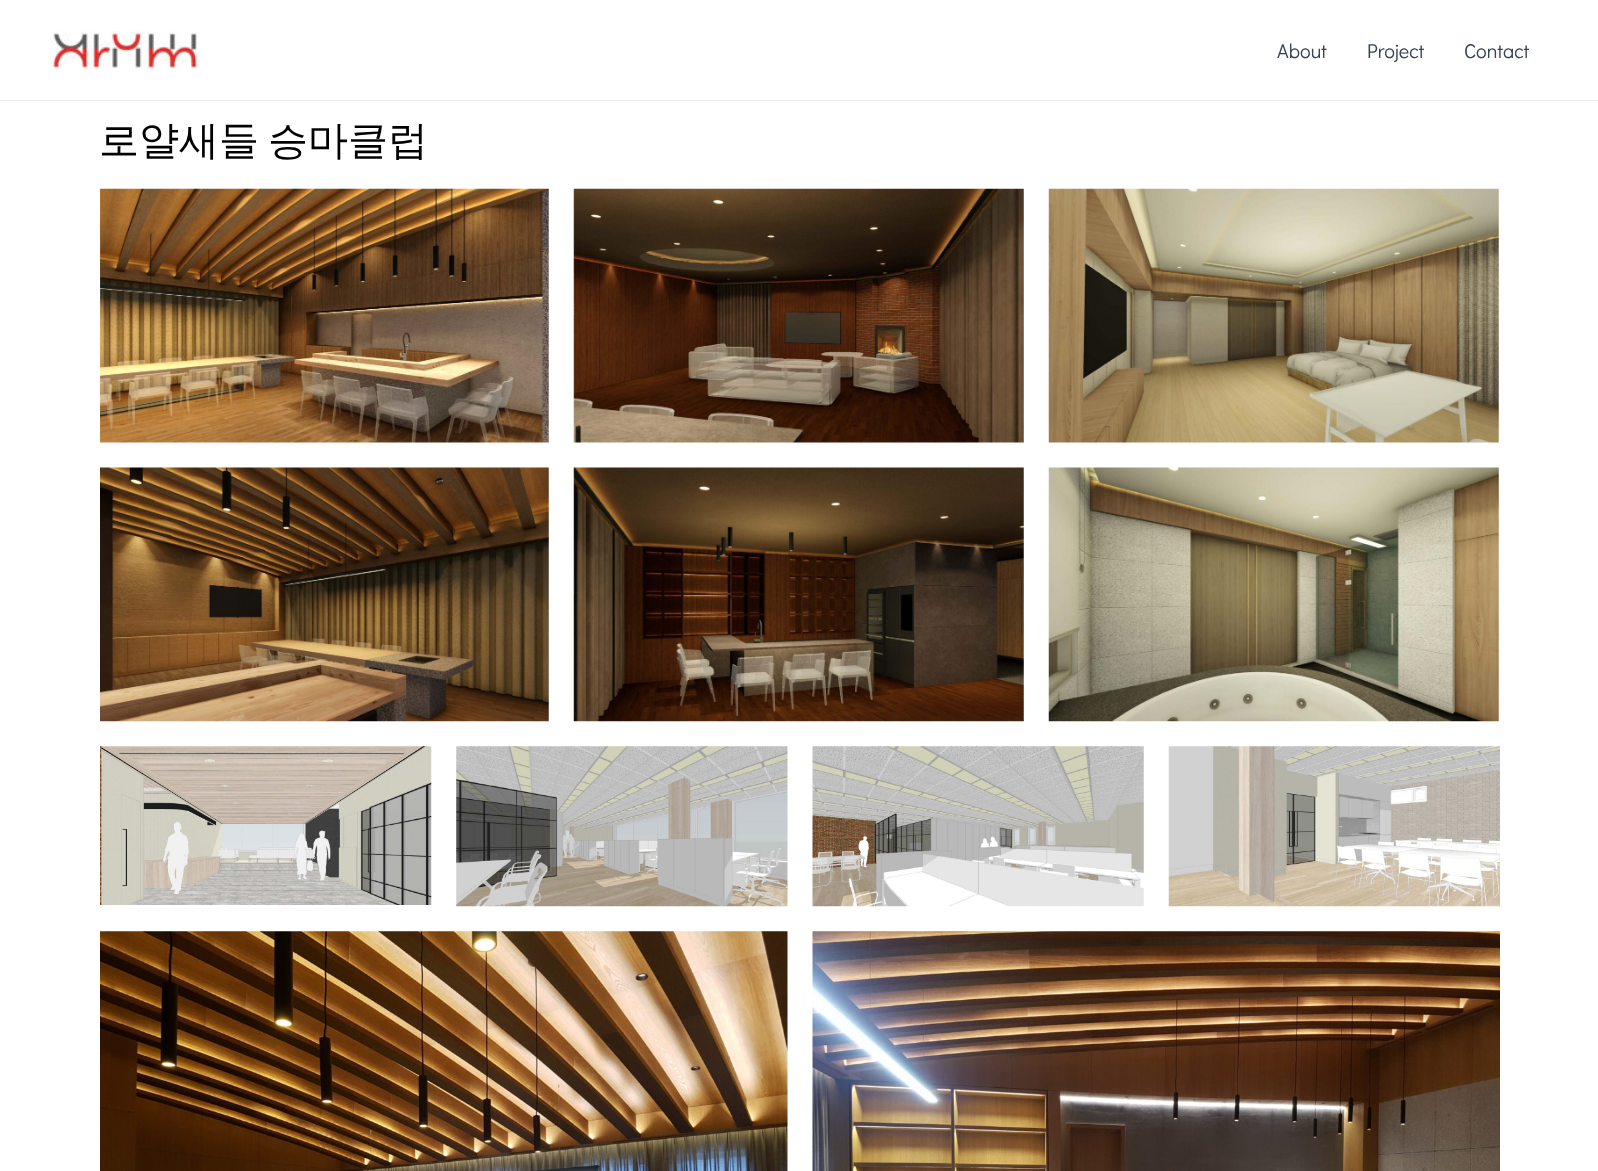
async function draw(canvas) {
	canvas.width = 1598;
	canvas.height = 1171;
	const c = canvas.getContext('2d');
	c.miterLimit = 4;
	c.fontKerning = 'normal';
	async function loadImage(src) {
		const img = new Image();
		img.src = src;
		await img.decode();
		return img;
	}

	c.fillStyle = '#fff';
	c.fillRect(0, 0, 1598, 1171);
	c.fillStyle = '#eaeaea';
	c.fillRect(0, 100, 1598, 1);
	c.drawImage(await loadImage('img1.png'), 50, 31, 150, 39);
	c.font = '20px Didact Gothic';
	c.fillStyle = '#334155';
	for (const [text, x, y] of [
		['About', 1277, 58],
		['Project', 1367, 58],
		['Contact', 1464, 58],
	]) {
		c.fillText(text, x, y);
	}
	c.wordSpacing = '-3px';
	c.font = '500 40px WenQuanYi Zen Hei';
	c.fillStyle = '#000';
	c.fillText('로얄새들 승마클럽', 99, 154);
	c.drawImage(await loadImage('img2.png'), 100, 188, 449, 255);
	c.drawImage(await loadImage('img3.png'), 573, 188, 451, 255);
	c.drawImage(await loadImage('img4.png'), 1048, 188, 451, 255);
	c.drawImage(await loadImage('img5.png'), 100, 467, 449, 255);
	c.drawImage(await loadImage('img6.png'), 573, 467, 451, 255);
	c.drawImage(await loadImage('img7.png'), 1048, 467, 451, 255);
	c.drawImage(await loadImage('img8.png'), 100, 746, 332, 159);
	c.drawImage(await loadImage('img9.png'), 456, 746, 332, 161);
	c.drawImage(await loadImage('img10.png'), 812, 746, 332, 161);
	c.drawImage(await loadImage('img11.png'), 1168, 746, 332, 161);
	c.drawImage(await loadImage('img12.png'), 100, 931, 688, 240);
	c.drawImage(await loadImage('img13.png'), 812, 931, 688, 240);
}

draw(document.querySelector('canvas'));
